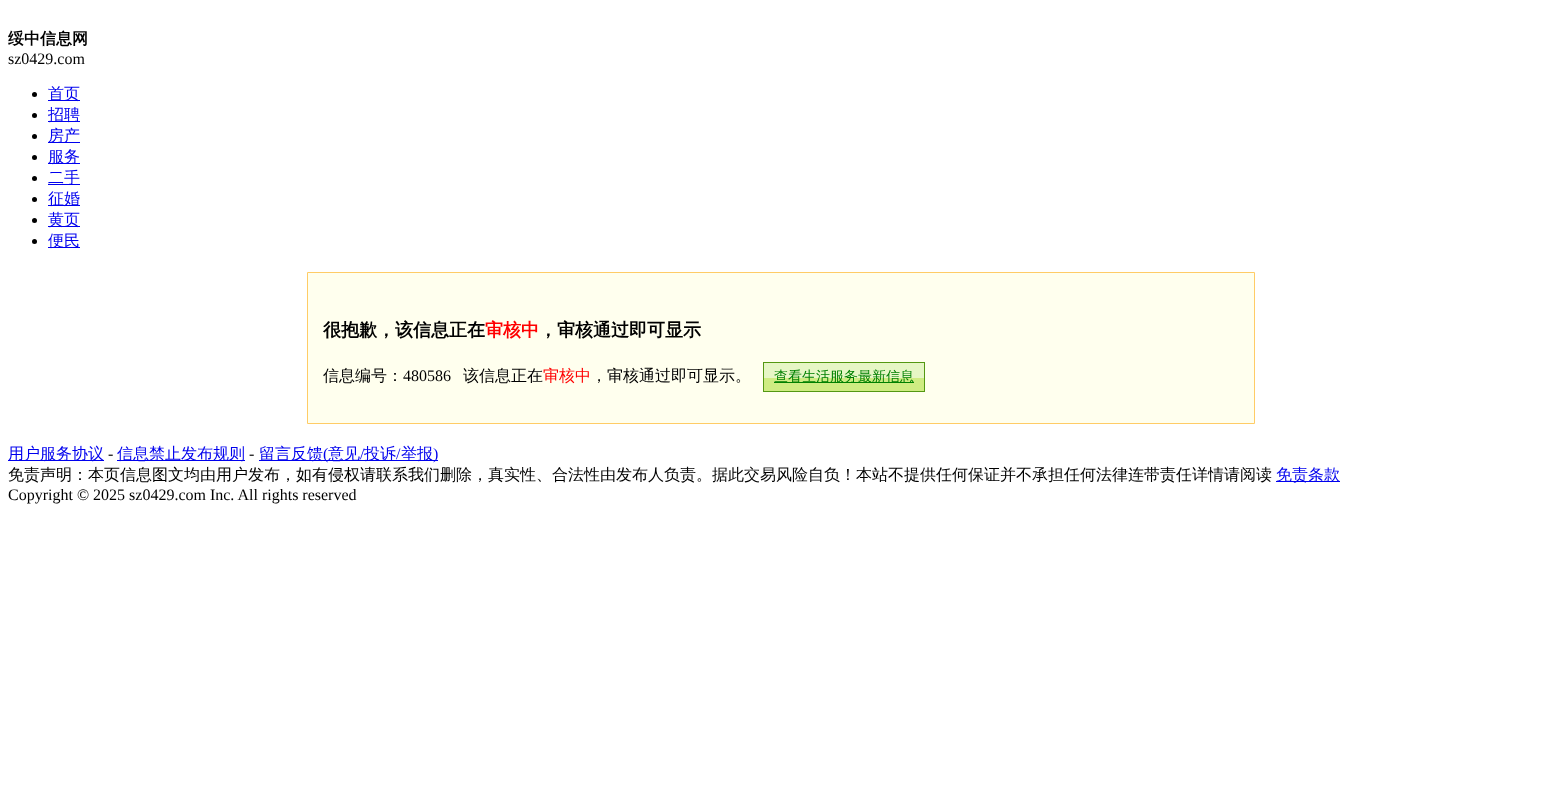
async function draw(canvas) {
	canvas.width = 1562;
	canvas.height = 809;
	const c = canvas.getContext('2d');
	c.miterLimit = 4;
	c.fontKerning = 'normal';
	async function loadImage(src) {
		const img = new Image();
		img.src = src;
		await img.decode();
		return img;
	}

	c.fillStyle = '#fff';
	c.fillRect(0, 0, 1562, 809);
	c.font = 'bold 16px WenQuanYi Zen Hei';
	c.fillStyle = '#000';
	c.fillText('绥中信息网', 8, 44);
	c.font = '16px Liberation Serif';
	c.fillText('sz0429.com', 8, 64);
	c.beginPath();
	c.arc(34.5, 94.5, 2.5, 0, 2 * Math.PI);
	c.fill();
	c.fillStyle = '#00e';
	c.fillRect(48, 100, 32, 1);
	c.font = '500 16px WenQuanYi Zen Hei';
	c.fillText('首页', 48, 99);
	c.fillStyle = '#000';
	c.beginPath();
	c.arc(34.5, 115.5, 2.5, 0, 2 * Math.PI);
	c.fill();
	c.fillStyle = '#00e';
	c.fillRect(48, 121, 32, 1);
	c.fillText('招聘', 48, 120);
	c.fillStyle = '#000';
	c.beginPath();
	c.arc(34.5, 136.5, 2.5, 0, 2 * Math.PI);
	c.fill();
	c.fillStyle = '#00e';
	c.fillRect(48, 142, 32, 1);
	c.fillText('房产', 48, 141);
	c.fillStyle = '#000';
	c.beginPath();
	c.arc(34.5, 157.5, 2.5, 0, 2 * Math.PI);
	c.fill();
	c.fillStyle = '#00e';
	c.fillRect(48, 163, 32, 1);
	c.fillText('服务', 48, 162);
	c.fillStyle = '#000';
	c.beginPath();
	c.arc(34.5, 178.5, 2.5, 0, 2 * Math.PI);
	c.fill();
	c.fillStyle = '#00e';
	c.fillRect(48, 184, 32, 1);
	c.fillText('二手', 48, 183);
	c.fillStyle = '#000';
	c.beginPath();
	c.arc(34.5, 199.5, 2.5, 0, 2 * Math.PI);
	c.fill();
	c.fillStyle = '#00e';
	c.fillRect(48, 205, 32, 1);
	c.fillText('征婚', 48, 204);
	c.fillStyle = '#000';
	c.beginPath();
	c.arc(34.5, 220.5, 2.5, 0, 2 * Math.PI);
	c.fill();
	c.fillStyle = '#00e';
	c.fillRect(48, 226, 32, 1);
	c.fillText('黄页', 48, 225);
	c.fillStyle = '#000';
	c.beginPath();
	c.arc(34.5, 241.5, 2.5, 0, 2 * Math.PI);
	c.fill();
	c.fillStyle = '#00e';
	c.fillRect(48, 247, 32, 1);
	c.fillText('便民', 48, 246);
	c.fillStyle = '#ffe';
	c.beginPath();
	c.rect(307.5, 272.5, 947, 151);
	c.fill();
	c.strokeStyle = '#fc6';
	c.stroke();
	c.font = 'bold 18px WenQuanYi Zen Hei';
	c.fillStyle = '#000';
	c.fillText('很抱歉，该信息正在', 323, 336);
	c.fillStyle = '#f00';
	c.fillText('审核中', 485, 336);
	c.fillStyle = '#000';
	c.fillText('，审核通过即可显示', 539, 336);
	c.font = '500 16px WenQuanYi Zen Hei';
	c.fillText('信息编号：', 323, 381);
	c.font = '16px Liberation Serif';
	c.fillText('480586', 403, 381);
	c.font = '500 16px WenQuanYi Zen Hei';
	c.fillText('该信息正在', 463, 381);
	c.fillStyle = '#f00';
	c.fillText('审核中', 543, 381);
	c.fillStyle = '#000';
	c.fillText('，审核通过即可显示。', 591, 381);
	c.drawImage(await loadImage('img1.png'), 764, 363, 160, 28);
	c.strokeStyle = '#549812';
	c.strokeRect(763.5, 362.5, 161, 29);
	c.fillStyle = '#008000';
	c.fillRect(774, 382, 140, 1);
	c.font = '500 14px WenQuanYi Zen Hei';
	c.fillText('查看生活服务最新信息', 774, 381);
	c.fillStyle = '#00e';
	c.fillRect(8, 460, 96, 1);
	c.font = '500 16px WenQuanYi Zen Hei';
	c.fillText('用户服务协议', 8, 459);
	c.font = '16px Liberation Serif';
	c.fillStyle = '#000';
	c.fillText('-', 108, 459);
	c.fillStyle = '#00e';
	c.fillRect(117, 460, 128, 1);
	c.font = '500 16px WenQuanYi Zen Hei';
	c.fillText('信息禁止发布规则', 117, 459);
	c.font = '16px Liberation Serif';
	c.fillStyle = '#000';
	c.fillText('-', 249, 459);
	c.fillStyle = '#00e';
	c.fillRect(259, 460, 179, 1);
	c.font = '500 16px WenQuanYi Zen Hei';
	c.fillText('留言反馈', 259, 459);
	c.font = '16px Liberation Serif';
	c.fillText('(', 323, 459);
	c.font = '500 16px WenQuanYi Zen Hei';
	c.fillText('意见', 328, 459);
	c.font = '16px Liberation Serif';
	c.fillText('/', 360, 459);
	c.font = '500 16px WenQuanYi Zen Hei';
	c.fillText('投诉', 364, 459);
	c.font = '16px Liberation Serif';
	c.fillText('/', 396, 459);
	c.font = '500 16px WenQuanYi Zen Hei';
	c.fillText('举报', 401, 459);
	c.font = '16px Liberation Serif';
	c.fillText(')', 433, 459);
	c.font = '500 16px WenQuanYi Zen Hei';
	c.fillStyle = '#000';
	c.fillText('免责声明：本页信息图文均由用户发布，如有侵权请联系我们删除，真实性、合法性由发布人负责。据此交易风险自负！本站不提供任何保证并不承担任何法律连带责任详情请阅读', 8, 480);
	c.fillStyle = '#00e';
	c.fillRect(1276, 481, 64, 1);
	c.fillText('免责条款', 1276, 480);
	c.font = '16px Liberation Serif';
	c.fillStyle = '#000';
	c.fillText('Copyright © 2025 sz0429.com Inc. All rights reserved', 8, 500);
}

draw(document.querySelector('canvas'));
